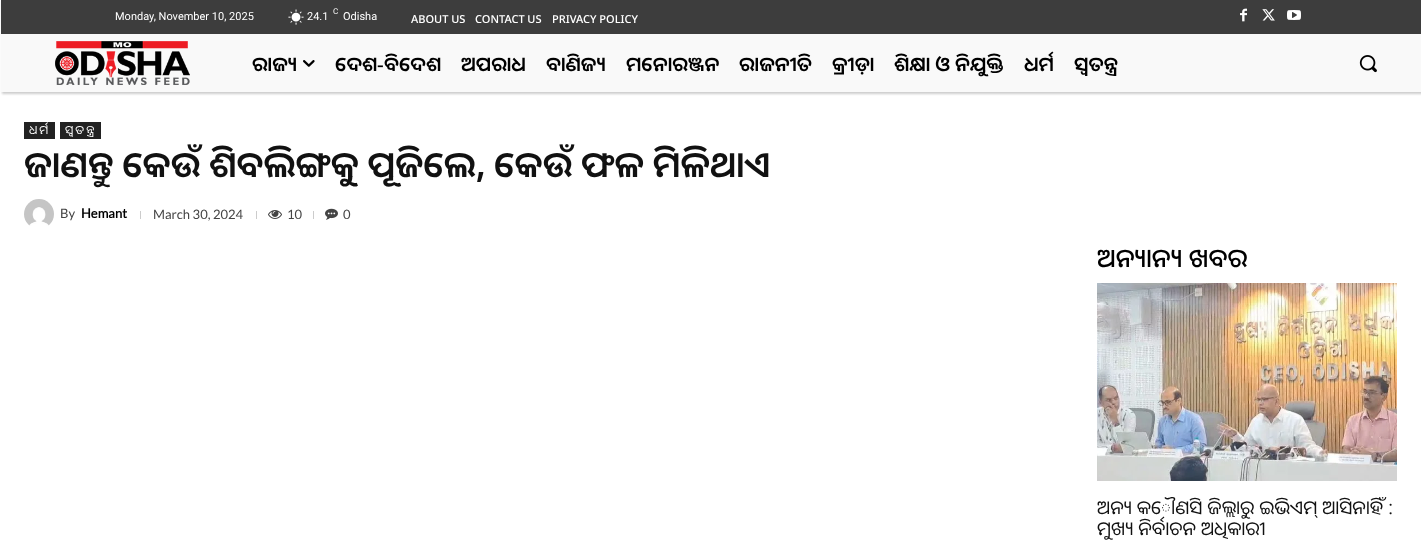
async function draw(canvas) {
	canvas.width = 1421;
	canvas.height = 544;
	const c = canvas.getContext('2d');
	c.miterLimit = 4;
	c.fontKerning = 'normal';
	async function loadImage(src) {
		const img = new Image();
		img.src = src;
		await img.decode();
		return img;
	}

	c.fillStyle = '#fff';
	c.fillRect(0, 0, 1421, 544);
	c.fillStyle = '#5454544a';
	c.filter = 'blur(1px)';
	c.beginPath();
	c.rect(2, 2, 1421, 92);
	c.fill();
	c.filter = 'none';
	c.fillStyle = '#3d3d3d';
	c.fillRect(1, 0, 1420, 34);
	c.font = '11px Roboto';
	c.fillStyle = '#fff';
	c.fillText('Monday, November 10, 2025', 115, 20);
	c.drawImage(await loadImage('img1.png'), 288, 9, 16, 16);
	c.fillText('24.1', 307, 20);
	c.font = '8px Roboto';
	c.fillText('C', 333, 14);
	c.font = '11px Roboto';
	c.fillText('Odisha', 343, 20);
	c.font = '500 11px Noto Sans Oriya';
	for (const [text, x, y] of [
		['ABOUT US', 411, 23],
		['CONTACT US', 475, 23],
		['PRIVACY POLICY', 552, 23],
	]) {
		c.fillText(text, x, y);
	}
	c.drawImage(await loadImage('img2.png'), 1240, 8, 7, 14);
	c.drawImage(await loadImage('img3.png'), 1262, 9, 13, 12);
	c.drawImage(await loadImage('img4.png'), 1287, 10, 14, 10);
	c.fillStyle = '#f9f9f9';
	c.fillRect(1, 34, 1420, 58);
	c.drawImage(await loadImage('img5.png'), 55, 41, 135, 44);
	c.font = '600 20px Noto Sans Oriya';
	c.fillStyle = '#000';
	c.fillText('ରାଜ୍ୟ', 252, 71);
	c.drawImage(await loadImage('img6.png'), 303, 60, 12, 7);
	c.fillText('ଦେଶ', 335, 71);
	c.font = 'bold 20px Liberation Serif';
	c.fillText('-', 377, 71);
	c.font = '600 20px Noto Sans Oriya';
	for (const [text, x, y] of [
		['ବିଦେଶ', 384, 71],
		['ଅପରାଧ', 461, 71],
		['ବାଣିଜ୍ୟ', 546, 71],
		['ମନୋରଞ୍ଜନ', 626, 71],
		['ରାଜନୀତି', 739, 71],
		['କ୍ରୀଡ଼ା', 832, 71],
		['ଶିକ୍ଷା ଓ ନିଯୁକ୍ତି', 894, 71],
		['ଧର୍ମ', 1024, 71],
		['ସ୍ୱତନ୍ତ୍ର', 1074, 71],
	]) {
		c.fillText(text, x, y);
	}
	c.drawImage(await loadImage('img7.png'), 1359, 55, 18, 18);
	c.fillStyle = '#222';
	c.fillRect(24, 122, 31, 17);
	c.letterSpacing = '2px';
	c.font = '12px Noto Sans Oriya';
	c.fillStyle = '#fff';
	c.fillText('ଧର୍ମ', 29, 134);
	c.fillStyle = '#222';
	c.fillRect(60, 122, 41, 17);
	c.fillStyle = '#fff';
	c.fillText('ସ୍ୱତନ୍ତ୍ର', 65, 134);
	c.letterSpacing = '0px';
	c.font = '600 36px Noto Sans Oriya';
	c.fillStyle = '#111';
	c.fillText('ଜାଣନ୍ତୁ କେଉଁ ଶିବଲିଙ୍ଗକୁ ପୂଜିଲେ, କେଉଁ ଫଳ ମିଳିଥାଏ', 24, 177);
	c.drawImage(await loadImage('img8.png'), 24, 199, 30, 27);
	c.font = '13px Lato';
	c.fillStyle = '#444';
	c.fillText('By', 60, 218);
	c.font = 'bold 13px Lato';
	c.fillStyle = '#000';
	c.fillText('Hemant', 81, 218);
	c.fillStyle = '#ccc';
	c.fillRect(140, 211, 1, 8);
	c.font = '13px Lato';
	c.fillStyle = '#444';
	c.fillText('March 30, 2024', 153, 219);
	c.fillStyle = '#ccc';
	c.fillRect(256, 211, 1, 8);
	c.drawImage(await loadImage('img9.png'), 268, 210, 14, 9);
	c.fillStyle = '#444';
	c.fillText('10', 287, 219);
	c.fillStyle = '#ccc';
	c.fillRect(313, 211, 1, 8);
	c.drawImage(await loadImage('img10.png'), 325, 208, 13, 12);
	c.fillStyle = '#444';
	c.fillText('0', 343, 219);
	c.font = '500 26px Noto Sans Oriya';
	c.fillStyle = '#000';
	c.fillText('ଅନ୍ୟାନ୍ୟ ଖବର', 1097, 267);
	c.drawImage(await loadImage('img11.png'), 1097, 283, 300, 198);
	c.font = '19px Noto Sans Oriya';
	c.fillStyle = '#111';
	c.fillText('ଅନ୍ୟ କୌଣସି ଜିଲ୍ଲାରୁ ଇଭିଏମ୍‌ ଆସିନାହିଁ :', 1097, 514);
	c.fillText('ମୁଖ୍ୟ ନିର୍ବାଚନ ଅଧିକାରୀ', 1097, 535);
}

draw(document.querySelector('canvas'));
